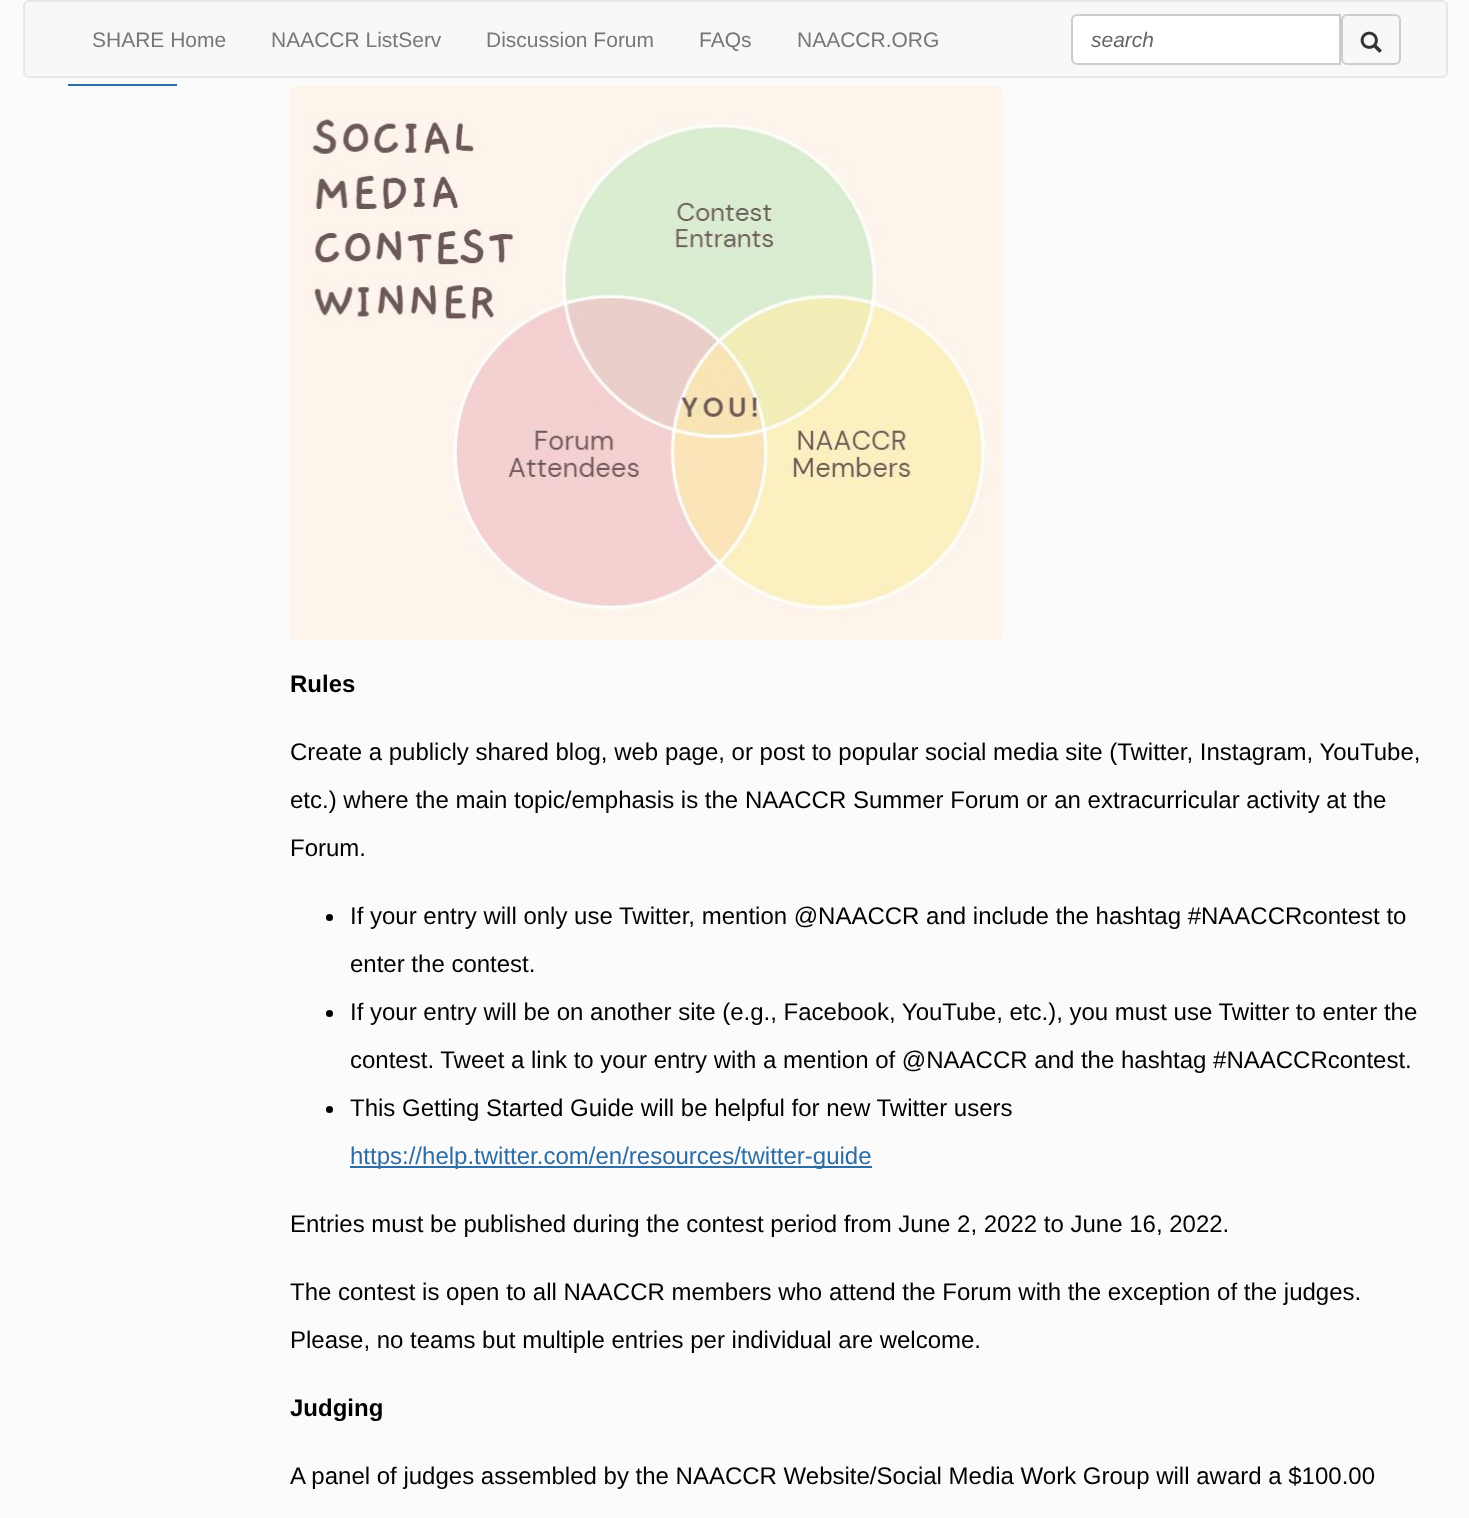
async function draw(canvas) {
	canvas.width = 1469;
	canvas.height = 1518;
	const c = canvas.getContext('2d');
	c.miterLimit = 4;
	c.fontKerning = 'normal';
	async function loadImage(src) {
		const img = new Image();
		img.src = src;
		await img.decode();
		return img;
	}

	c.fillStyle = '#fbfbfb';
	c.fillRect(0, 0, 1469, 1518);
	c.fillStyle = '#f8f8f8';
	c.beginPath();
	c.roundRect(24, 1, 1423, 76, 5);
	c.fill();
	c.strokeStyle = '#e7e7e7';
	c.lineWidth = 2;
	c.stroke();
	c.font = '21px Liberation Sans';
	c.fillStyle = '#777';
	for (const [text, x, y] of [
		['SHARE Home', 92, 47],
		['NAACCR ListServ', 271, 47],
		['Discussion Forum', 486, 47],
		['FAQs', 699, 47],
		['NAACCR.ORG', 797, 47],
	]) {
		c.fillText(text, x, y);
	}
	c.fillStyle = '#fff';
	c.beginPath();
	c.roundRect(1072, 15, 268, 49, [5, 0, 0, 5]);
	c.fill();
	c.strokeStyle = '#ccc';
	c.stroke();
	c.font = 'italic 21px Liberation Sans';
	c.fillStyle = '#666';
	c.fillText('search', 1091, 47);
	c.beginPath();
	c.roundRect(1342, 15, 58, 49, 5);
	c.stroke();
	c.drawImage(await loadImage('img1.png'), 1360, 31, 22, 22);
	c.fillStyle = '#2e6da4';
	c.fillRect(68, 84, 109, 2);
	c.drawImage(await loadImage('img2.png'), 289, 85, 715, 556);
	c.font = 'bold 24px Liberation Sans';
	c.fillStyle = '#000';
	c.fillText('Rules', 290, 692);
	c.font = '24px Liberation Sans';
	for (const [text, x, y] of [
		['Create a publicly shared blog, web page, or post to popular social media site (Twitter, Instagram, YouTube,', 290, 760],
		['etc.) where the main topic/emphasis is the NAACCR Summer Forum or an extracurricular activity at the', 290, 808],
		['Forum.', 290, 856],
	]) {
		c.fillText(text, x, y);
	}
	c.beginPath();
	c.arc(329.5, 917.5, 3.5, 0, 2 * Math.PI);
	c.fill();
	c.fillText('If your entry will only use Twitter, mention @NAACCR and include the hashtag #NAACCRcontest to', 350, 924);
	c.fillText('enter the contest.', 350, 972);
	c.beginPath();
	c.arc(329.5, 1013.5, 3.5, 0, 2 * Math.PI);
	c.fill();
	c.fillText('If your entry will be on another site (e.g., Facebook, YouTube, etc.), you must use Twitter to enter the', 350, 1020);
	c.fillText('contest. Tweet a link to your entry with a mention of @NAACCR and the hashtag #NAACCRcontest.', 350, 1068);
	c.beginPath();
	c.arc(329.5, 1109.5, 3.5, 0, 2 * Math.PI);
	c.fill();
	c.fillText('This Getting Started Guide will be helpful for new Twitter users', 350, 1116);
	c.fillStyle = '#2e6da4';
	c.fillRect(350, 1166, 522, 2);
	c.fillText('https://help.twitter.com/en/resources/twitter-guide', 350, 1164);
	c.fillStyle = '#000';
	for (const [text, x, y] of [
		['Entries must be published during the contest period from June 2, 2022 to June 16, 2022.', 290, 1232],
		['The contest is open to all NAACCR members who attend the Forum with the exception of the judges.', 290, 1300],
		['Please, no teams but multiple entries per individual are welcome.', 290, 1348],
	]) {
		c.fillText(text, x, y);
	}
	c.font = 'bold 24px Liberation Sans';
	c.fillText('Judging', 290, 1416);
	c.font = '24px Liberation Sans';
	c.fillText('A panel of judges assembled by the NAACCR Website/Social Media Work Group will award a $100.00', 290, 1484);
}

draw(document.querySelector('canvas'));
